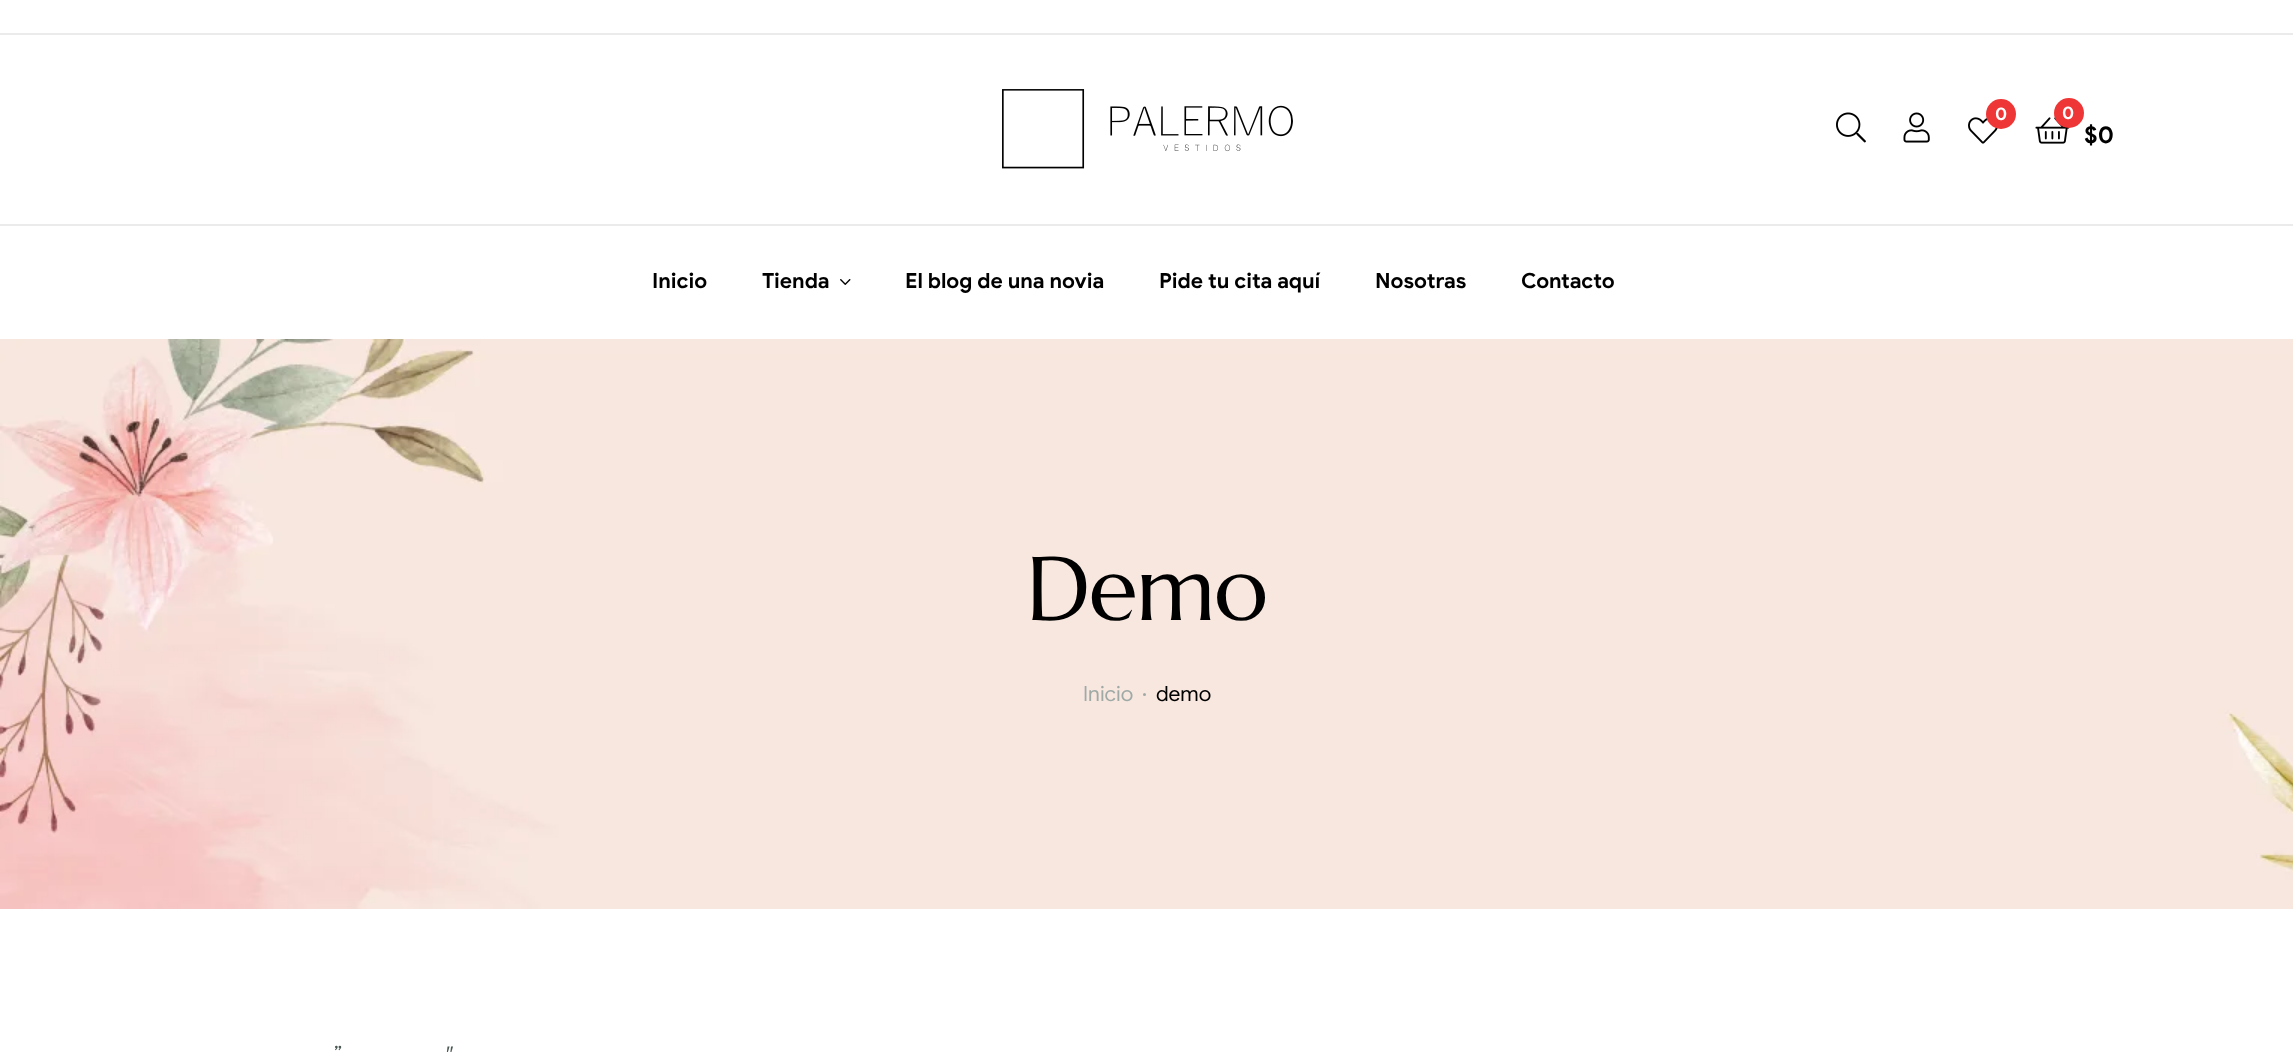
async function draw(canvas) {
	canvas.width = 2293;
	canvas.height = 1054;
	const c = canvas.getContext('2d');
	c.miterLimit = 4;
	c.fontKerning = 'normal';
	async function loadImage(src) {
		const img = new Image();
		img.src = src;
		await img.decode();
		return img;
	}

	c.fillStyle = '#fff';
	c.fillRect(0, 0, 2293, 1054);
	c.fillStyle = '#ebebeb';
	c.fillRect(0, 33, 2293, 2);
	c.drawImage(await loadImage('img1.png'), 1002, 89, 291, 80);
	c.drawImage(await loadImage('img2.png'), 1836, 112, 30, 31);
	c.drawImage(await loadImage('img3.png'), 1903, 112, 27, 31);
	c.drawImage(await loadImage('img4.png'), 1968, 117, 30, 27);
	c.fillStyle = '#ef3636';
	c.beginPath();
	c.arc(2001, 114, 15, 0, 2 * Math.PI);
	c.fill();
	c.font = 'bold 18px Google Sans';
	c.fillStyle = '#fff';
	c.fillText('0', 1995, 120);
	c.drawImage(await loadImage('img5.png'), 2035, 117, 35, 27);
	c.fillStyle = '#ef3636';
	c.beginPath();
	c.arc(2069, 113, 15, 0, 2 * Math.PI);
	c.fill();
	c.fillStyle = '#fff';
	c.fillText('0', 2062, 119);
	c.font = 'bold 24px Google Sans';
	c.fillStyle = '#000';
	c.fillText('$0', 2084, 143);
	c.fillStyle = '#ebebeb';
	c.fillRect(0, 224, 2293, 2);
	c.font = 'bold 21px Google Sans';
	c.fillStyle = '#000';
	c.fillText('Inicio', 652, 288);
	c.fillText('Tienda', 762, 288);
	c.drawImage(await loadImage('img6.png'), 840, 279, 11, 6);
	for (const [text, x, y] of [
		['El blog de una novia', 905, 288],
		['Pide tu cita aquí', 1159, 288],
		['Nosotras', 1375, 288],
		['Contacto', 1521, 288],
	]) {
		c.fillText(text, x, y);
	}
	c.drawImage(await loadImage('img7.png'), 0, 339, 2293, 570);
	c.letterSpacing = '-1.5px';
	c.font = '90px Marcellus';
	c.fillText('Demo', 1026, 620);
	c.letterSpacing = '0px';
	c.font = '21px Google Sans';
	c.fillStyle = '#9faaa7';
	c.fillText('Inicio', 1083, 701);
	c.beginPath();
	c.arc(1144.5, 694.5, 1.5, 0, 2 * Math.PI);
	c.fill();
	c.fillStyle = '#000';
	c.fillText('demo', 1156, 701);
	c.fillStyle = '#4b5955';
	c.fillText('”', 334, 1061);
	c.font = '21px Liberation Sans';
	c.fillText('″', 446, 1061);
}

draw(document.querySelector('canvas'));
